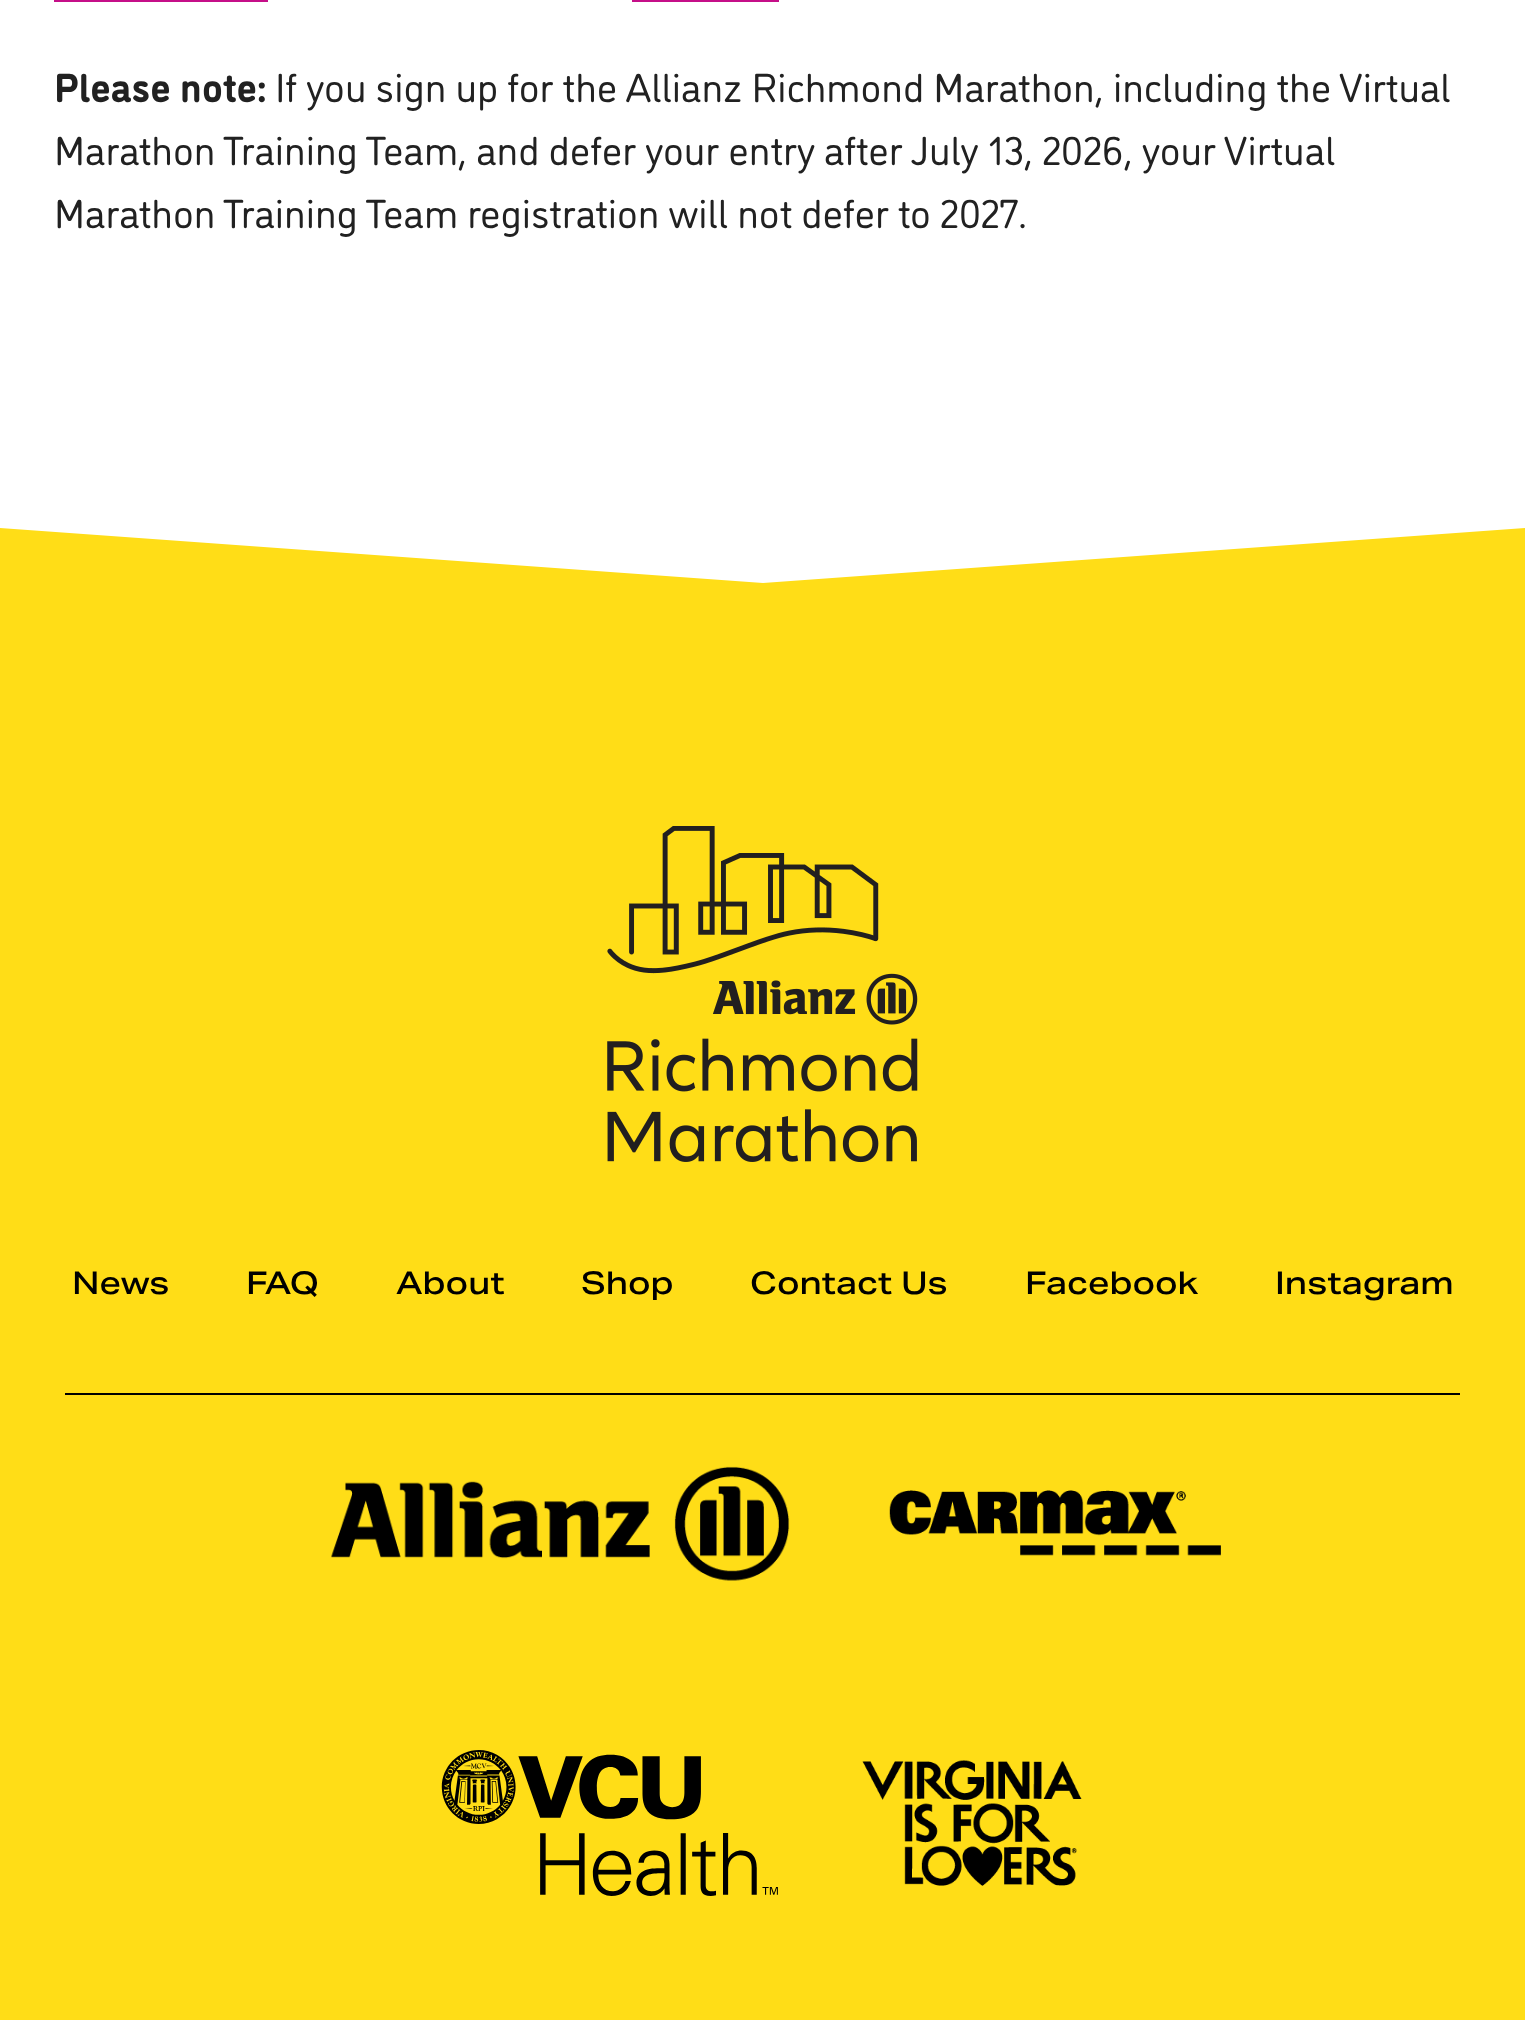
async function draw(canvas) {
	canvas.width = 1525;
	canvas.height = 2020;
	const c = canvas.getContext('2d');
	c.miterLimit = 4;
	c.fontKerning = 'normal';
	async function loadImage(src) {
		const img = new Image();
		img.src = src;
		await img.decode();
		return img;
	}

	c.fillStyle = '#fff';
	c.fillRect(0, 0, 1525, 2020);
	c.fillStyle = '#c50f88';
	c.fillRect(54, 0, 214, 2);
	c.fillRect(632, 0, 147, 2);
	c.font = 'bold 40.5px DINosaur';
	c.fillStyle = '#212121';
	c.fillText('Please note:', 54, 102);
	c.font = '40.5px DINosaur';
	for (const [text, x, y] of [
		['If you sign up for the Allianz Richmond Marathon, including the Virtual', 275, 102],
		['Marathon Training Team, and defer your entry after July 13, 2026, your Virtual', 54, 165],
		['Marathon Training Team registration will not defer to 2027.', 54, 228],
	]) {
		c.fillText(text, x, y);
	}
	c.fillStyle = '#ffdd17';
	c.fillRect(0, 527, 1525, 1493);
	c.fillStyle = '#fff';
	c.beginPath();
	c.moveTo(-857, 466);
	c.lineTo(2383, 466);
	c.lineTo(763, 583);
	c.closePath();
	c.fill();
	c.drawImage(await loadImage('img1.png'), 607, 826, 311, 337);
	c.font = '500 31.5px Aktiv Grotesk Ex';
	c.fillStyle = '#000';
	for (const [text, x, y] of [
		['News', 72, 1294],
		['FAQ', 246, 1294],
		['About', 396, 1294],
		['Shop', 581, 1294],
		['Contact Us', 750, 1294],
		['Facebook', 1025, 1294],
		['Instagram', 1275, 1294],
	]) {
		c.fillText(text, x, y);
	}
	c.fillRect(65, 1393, 1395, 2);
	c.drawImage(await loadImage('img2.png'), 331, 1466, 459, 115);
	c.drawImage(await loadImage('img3.png'), 889, 1490, 332, 66);
	c.drawImage(await loadImage('img4.png'), 441, 1750, 337, 146);
	c.drawImage(await loadImage('img5.png'), 862, 1760, 220, 126);
}

draw(document.querySelector('canvas'));
